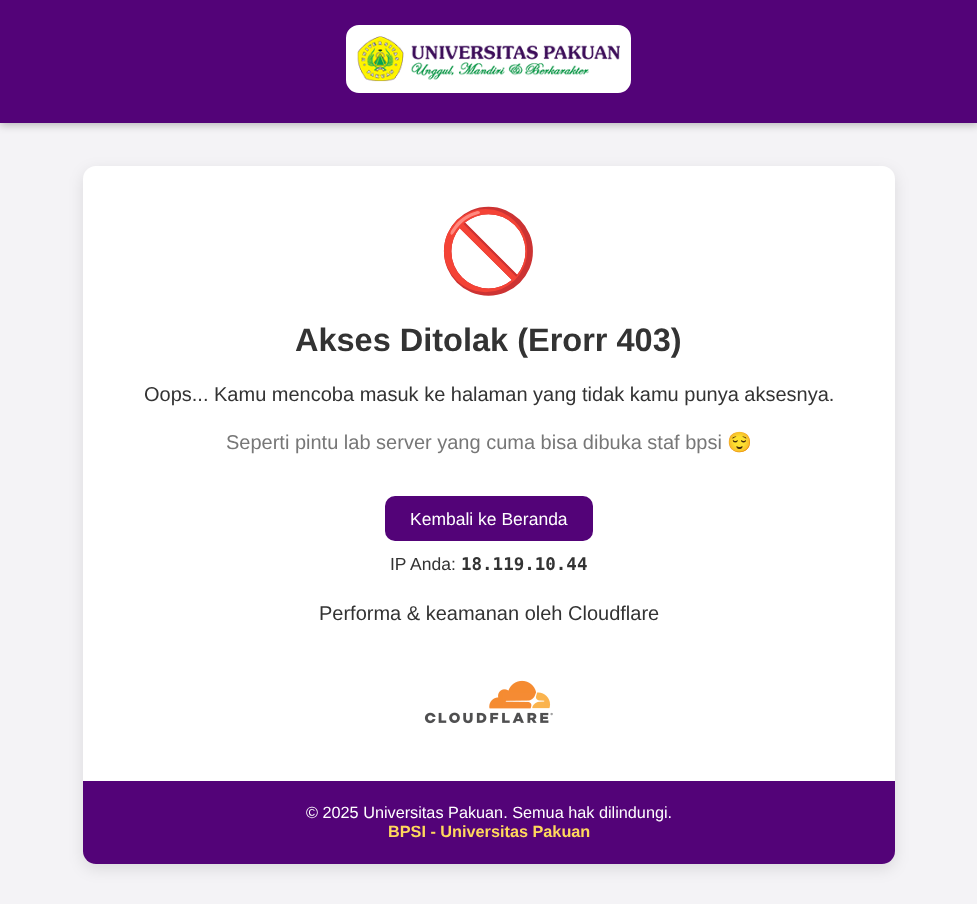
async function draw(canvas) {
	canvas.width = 977;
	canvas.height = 904;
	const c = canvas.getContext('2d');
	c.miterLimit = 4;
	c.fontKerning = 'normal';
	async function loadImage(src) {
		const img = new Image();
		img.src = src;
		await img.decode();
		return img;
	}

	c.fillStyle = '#f4f3f6';
	c.fillRect(0, 0, 977, 904);
	c.fillStyle = '#00000040';
	c.filter = 'blur(4px)';
	c.beginPath();
	c.rect(0, 3, 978, 122);
	c.fill();
	c.filter = 'none';
	c.fillStyle = '#530378';
	c.fillRect(0, 0, 977, 123);
	c.fillStyle = '#fff';
	c.beginPath();
	c.roundRect(348, 27, 281, 64, 11);
	c.fill();
	c.strokeStyle = '#fff';
	c.lineWidth = 4;
	c.stroke();
	c.drawImage(await loadImage('img1.png'), 357, 36, 263, 46);
	c.fillStyle = '#0000001a';
	c.filter = 'blur(7.5px)';
	c.beginPath();
	c.roundRect(83, 171, 812, 698, 13);
	c.fill();
	c.filter = 'none';
	c.fillStyle = '#fff';
	c.beginPath();
	c.roundRect(83, 166, 812, 698, 13);
	c.fill();
	c.font = '81px Noto Color Emoji';
	c.fillStyle = '#333';
	c.fillText('🚫', 438, 279);
	c.font = 'bold 32.5px Liberation Sans';
	c.fillText('Akses Ditolak (Erorr 403)', 295, 351);
	c.font = '20px Liberation Sans';
	c.fillText('Oops... Kamu mencoba masuk ke halaman yang tidak kamu punya aksesnya.', 144, 401);
	c.fillStyle = '#777';
	c.fillText('Seperti pintu lab server yang cuma bisa dibuka staf bpsi', 226, 449);
	c.font = '20px Noto Color Emoji';
	c.fillText('😌', 727, 449);
	c.fillStyle = '#530378';
	c.beginPath();
	c.roundRect(385, 496, 208, 45, 10);
	c.fill();
	c.font = '17.5px Liberation Sans';
	c.fillStyle = '#fff';
	c.fillText('Kembali ke Beranda', 410, 525);
	c.fillStyle = '#333';
	c.fillText('IP Anda:', 390, 570);
	c.font = 'bold 17.5px DejaVu Sans Mono';
	c.fillText('18.119.10.44', 461, 570);
	c.font = '20px Liberation Sans';
	c.fillText('Performa & keamanan oleh Cloudflare', 319, 620);
	c.drawImage(await loadImage('img2.png'), 424, 680, 129, 44);
	c.fillStyle = '#530378';
	c.beginPath();
	c.roundRect(83, 781, 812, 83, [0, 0, 13, 13]);
	c.fill();
	c.font = '16.25px Liberation Sans';
	c.fillStyle = '#fff';
	c.fillText('© 2025 Universitas Pakuan. Semua hak dilindungi.', 306, 818);
	c.font = 'bold 16.25px Liberation Sans';
	c.fillStyle = '#ffd85c';
	c.fillText('BPSI - Universitas Pakuan', 388, 837);
}

draw(document.querySelector('canvas'));
